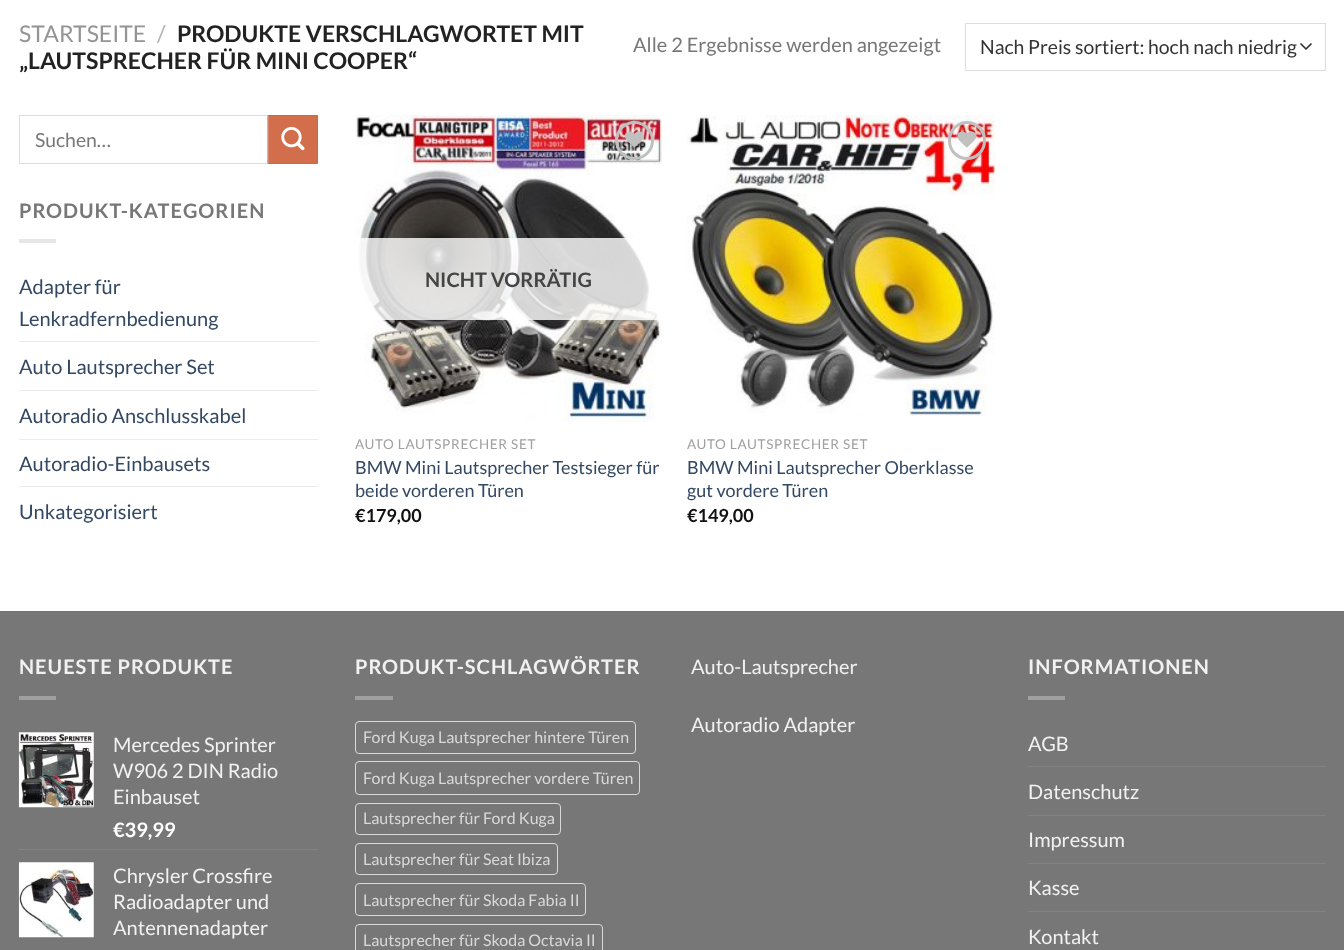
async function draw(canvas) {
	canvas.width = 1344;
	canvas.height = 950;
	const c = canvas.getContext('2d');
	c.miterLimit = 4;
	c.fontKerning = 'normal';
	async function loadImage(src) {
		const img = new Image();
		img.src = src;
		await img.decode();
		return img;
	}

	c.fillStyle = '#fff';
	c.fillRect(0, 0, 1344, 950);
	c.font = '23px Lato';
	c.fillStyle = '#949494';
	c.fillText('STARTSEITE', 19, 42);
	c.fillStyle = '#b2b2b2';
	c.fillText('/', 157, 42);
	c.font = 'bold 23px Lato';
	c.fillStyle = '#222';
	c.fillText('PRODUKTE VERSCHLAGWORTET MIT', 177, 42);
	c.fillText('„LAUTSPRECHER FÜR MINI COOPER“', 19, 69);
	c.font = '20px Lato';
	c.fillStyle = '#777';
	c.fillText('Alle 2 Ergebnisse werden angezeigt', 633, 52);
	c.beginPath();
	c.moveTo(1301, 44);
	c.lineTo(1306, 49);
	c.lineTo(1311, 44);
	c.strokeStyle = '#333';
	c.lineWidth = 1.7;
	c.lineCap = 'round';
	c.lineJoin = 'round';
	c.stroke();
	c.strokeStyle = '#ddd';
	c.lineWidth = 1;
	c.lineJoin = 'miter';
	c.strokeRect(965.5, 23.5, 360, 47);
	c.font = '19.4px Lato';
	c.fillStyle = '#333';
	c.fillText('Nach Preis sortiert: hoch nach niedrig', 980, 54);
	c.strokeRect(19.5, 115.5, 248, 48);
	c.fillStyle = '#777';
	c.fillText('Suchen…', 35, 147);
	c.fillStyle = '#d26e4b';
	c.beginPath();
	c.rect(268.5, 115.5, 49, 48);
	c.fill();
	c.strokeStyle = '#c86947';
	c.stroke();
	c.drawImage(await loadImage('img1.png'), 281, 126, 24, 25);
	c.letterSpacing = '1px';
	c.font = 'bold 20px Lato';
	c.fillStyle = '#777';
	c.fillText('PRODUKT-KATEGORIEN', 19, 218);
	c.fillStyle = '#e6e6e6';
	c.fillRect(19, 239, 37, 4);
	c.letterSpacing = '0px';
	c.font = '20px Lato';
	c.fillStyle = '#334862';
	c.fillText('Adapter für', 19, 294);
	c.fillText('Lenkradfernbedienung', 19, 326);
	c.fillStyle = '#ececec';
	c.fillRect(19, 341, 299, 1);
	c.fillStyle = '#334862';
	c.fillText('Auto Lautsprecher Set', 19, 374);
	c.fillStyle = '#ececec';
	c.fillRect(19, 390, 299, 1);
	c.fillStyle = '#334862';
	c.fillText('Autoradio Anschlusskabel', 19, 423);
	c.fillStyle = '#ececec';
	c.fillRect(19, 439, 299, 1);
	c.fillStyle = '#334862';
	c.fillText('Autoradio-Einbausets', 19, 471);
	c.fillStyle = '#ececec';
	c.fillRect(19, 486, 299, 1);
	c.fillStyle = '#334862';
	c.fillText('Unkategorisiert', 19, 519);
	c.drawImage(await loadImage('img2.png'), 355, 115, 308, 307);
	c.beginPath();
	c.arc(634.5, 140.5, 18, 0, 2 * Math.PI);
	c.strokeStyle = '#c0c0c0';
	c.lineWidth = 3;
	c.stroke();
	c.drawImage(await loadImage('img3.png'), 625, 131, 19, 17);
	c.fillStyle = '#ffffffcf';
	c.fillRect(355, 238, 307, 82);
	c.font = 'bold 20px Lato';
	c.fillStyle = '#444';
	c.fillText('NICHT VORRÄTIG', 425, 287);
	c.letterSpacing = '0.7px';
	c.font = '13.5px Lato';
	c.fillStyle = '#a0a0a0';
	c.fillText('AUTO LAUTSPRECHER SET', 355, 449);
	c.letterSpacing = '0px';
	c.font = '18px Lato';
	c.fillStyle = '#334862';
	c.fillText('BMW Mini Lautsprecher Testsieger für', 355, 474);
	c.fillText('beide vorderen Türen', 355, 497);
	c.font = 'bold 18px Lato';
	c.fillStyle = '#111';
	c.fillText('€179,00', 355, 522);
	c.drawImage(await loadImage('img4.png'), 686, 115, 309, 301);
	c.beginPath();
	c.roundRect(949.5, 122.5, 35, 36, 17.5);
	c.stroke();
	c.drawImage(await loadImage('img5.png'), 957, 131, 20, 17);
	c.letterSpacing = '0.7px';
	c.font = '13.5px Lato';
	c.fillStyle = '#a0a0a0';
	c.fillText('AUTO LAUTSPRECHER SET', 687, 449);
	c.letterSpacing = '0px';
	c.font = '18px Lato';
	c.fillStyle = '#334862';
	c.fillText('BMW Mini Lautsprecher Oberklasse', 687, 474);
	c.fillText('gut vordere Türen', 687, 497);
	c.font = 'bold 18px Lato';
	c.fillStyle = '#111';
	c.fillText('€149,00', 687, 522);
	c.fillStyle = '#777';
	c.fillRect(0, 612, 1344, 338);
	c.fillStyle = '#717171';
	c.fillRect(0, 611, 1344, 1);
	c.letterSpacing = '1px';
	c.font = 'bold 20px Lato';
	c.fillStyle = '#f1f1f1';
	c.fillText('NEUESTE PRODUKTE', 19, 674);
	c.fillStyle = '#a0a0a0';
	c.fillRect(19, 696, 37, 4);
	c.drawImage(await loadImage('img6.png'), 18, 732, 76, 76);
	c.letterSpacing = '0px';
	c.font = '20px Lato';
	c.fillStyle = '#f1f1f1';
	for (const [text, x, y] of [
		['Mercedes Sprinter', 113, 752],
		['W906 2 DIN Radio', 113, 778],
		['Einbauset', 113, 804],
	]) {
		c.fillText(text, x, y);
	}
	c.font = 'bold 20px Lato';
	c.fillStyle = '#fff';
	c.fillText('€39,99', 113, 837);
	c.fillStyle = '#828282';
	c.fillRect(19, 849, 299, 1);
	c.drawImage(await loadImage('img7.png'), 18, 862, 76, 76);
	c.font = '20px Lato';
	c.fillStyle = '#f1f1f1';
	for (const [text, x, y] of [
		['Chrysler Crossfire', 113, 883],
		['Radioadapter und', 113, 909],
		['Antennenadapter', 113, 935],
	]) {
		c.fillText(text, x, y);
	}
	c.letterSpacing = '1px';
	c.font = 'bold 20px Lato';
	c.fillText('PRODUKT-SCHLAGWÖRTER', 355, 674);
	c.fillStyle = '#a0a0a0';
	c.fillRect(355, 696, 38, 4);
	c.beginPath();
	c.roundRect(355.5, 721.5, 280, 32, 3.5);
	c.strokeStyle = '#d9d9d9';
	c.lineWidth = 1;
	c.stroke();
	c.letterSpacing = '0px';
	c.font = '16px Lato';
	c.fillStyle = '#d9d9d9';
	c.fillText('Ford Kuga Lautsprecher hintere Türen', 363, 743);
	c.beginPath();
	c.roundRect(355.5, 761.5, 284, 33, 3.5);
	c.stroke();
	c.fillText('Ford Kuga Lautsprecher vordere Türen', 363, 784);
	c.beginPath();
	c.roundRect(355.5, 803.5, 205, 31, 3.5);
	c.stroke();
	c.fillText('Lautsprecher für Ford Kuga', 363, 824);
	c.beginPath();
	c.roundRect(355.5, 843.5, 202, 31, 3.5);
	c.stroke();
	c.fillText('Lautsprecher für Seat Ibiza', 363, 865);
	c.beginPath();
	c.roundRect(355.5, 883.5, 230, 32, 3.5);
	c.stroke();
	c.fillText('Lautsprecher für Skoda Fabia II', 363, 906);
	c.beginPath();
	c.roundRect(355.5, 924.5, 247, 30, 3.5);
	c.stroke();
	c.fillText('Lautsprecher für Skoda Octavia II', 363, 946);
	c.font = '20px Lato';
	c.fillStyle = '#f1f1f1';
	c.fillText('Auto-Lautsprecher', 691, 674);
	c.fillText('Autoradio Adapter', 691, 732);
	c.letterSpacing = '1px';
	c.font = 'bold 20px Lato';
	c.fillText('INFORMATIONEN', 1028, 674);
	c.fillStyle = '#a0a0a0';
	c.fillRect(1028, 696, 37, 4);
	c.letterSpacing = '0px';
	c.font = '20px Lato';
	c.fillStyle = '#f1f1f1';
	c.fillText('AGB', 1028, 751);
	c.fillStyle = '#828282';
	c.fillRect(1028, 766, 298, 1);
	c.fillStyle = '#f1f1f1';
	c.fillText('Datenschutz', 1028, 799);
	c.fillStyle = '#828282';
	c.fillRect(1028, 815, 298, 1);
	c.fillStyle = '#f1f1f1';
	c.fillText('Impressum', 1028, 847);
	c.fillStyle = '#828282';
	c.fillRect(1028, 863, 298, 1);
	c.fillStyle = '#f1f1f1';
	c.fillText('Kasse', 1028, 895);
	c.fillStyle = '#828282';
	c.fillRect(1028, 911, 298, 1);
	c.fillStyle = '#f1f1f1';
	c.fillText('Kontakt', 1028, 944);
}

draw(document.querySelector('canvas'));
